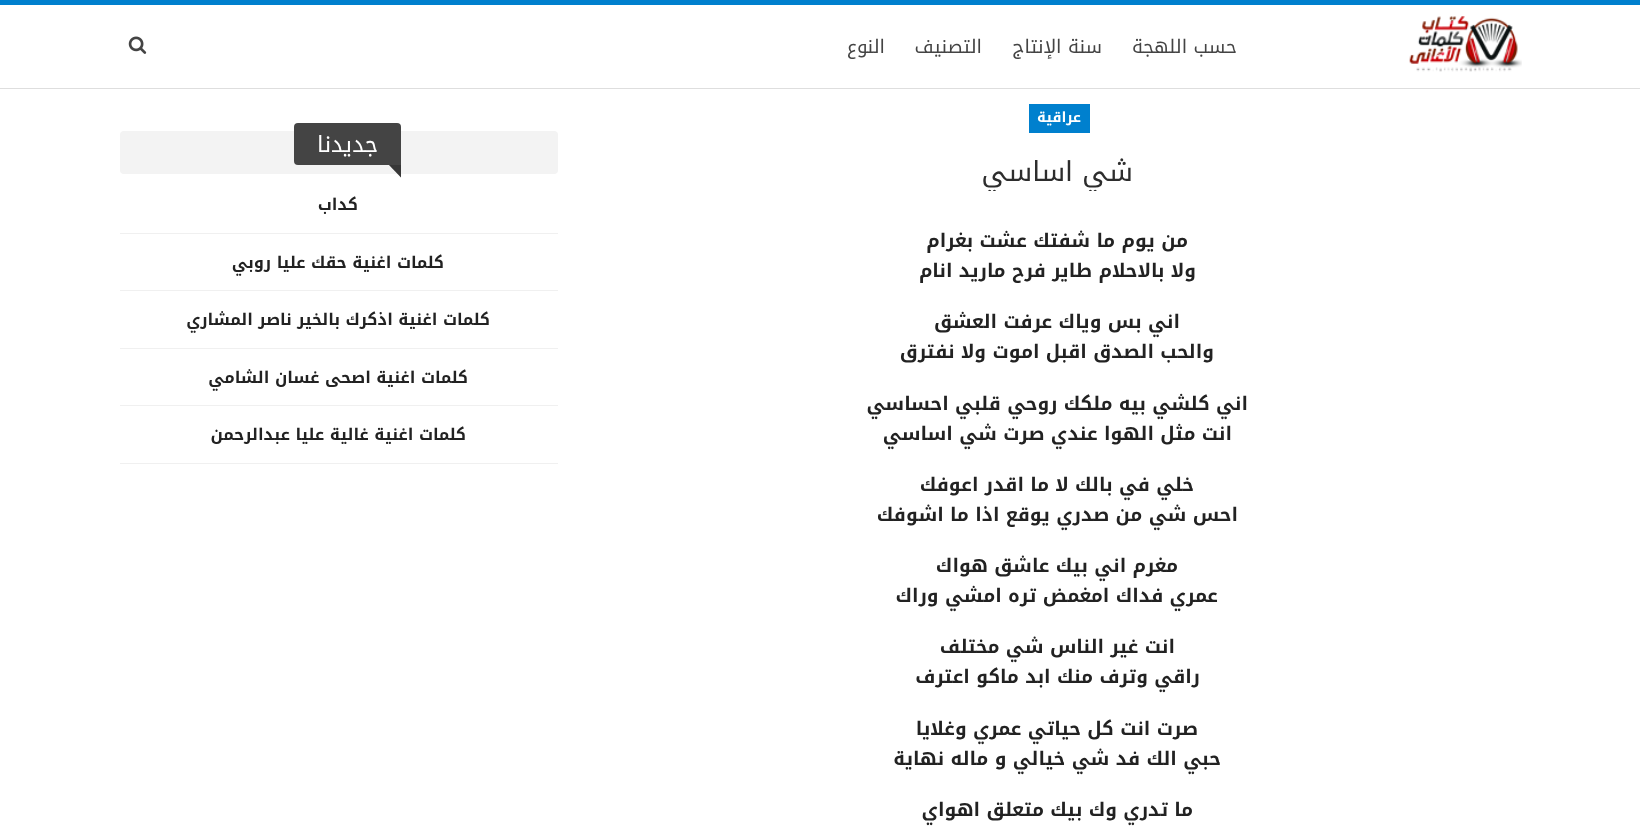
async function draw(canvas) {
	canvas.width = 1640;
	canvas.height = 836;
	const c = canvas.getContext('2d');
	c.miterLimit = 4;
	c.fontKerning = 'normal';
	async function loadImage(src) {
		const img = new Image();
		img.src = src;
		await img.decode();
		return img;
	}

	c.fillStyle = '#fff';
	c.fillRect(0, 0, 1640, 836);
	c.fillStyle = '#0080ce';
	c.fillRect(0, 0, 1640, 5);
	c.fillStyle = '#dedede';
	c.fillRect(0, 88, 1640, 1);
	c.drawImage(await loadImage('img1.png'), 1409, 16, 113, 56);
	c.direction = 'rtl';
	c.font = '18.75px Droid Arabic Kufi';
	c.fillStyle = '#444';
	for (const [text, x, y] of [
		['حسب اللهجة', 1237, 53],
		['سنة الإنتاج', 1102, 53],
		['التصنيف', 982, 53],
		['النوع', 885, 53],
	]) {
		c.fillText(text, x, y);
	}
	c.drawImage(await loadImage('img2.png'), 128, 36, 19, 18);
	c.fillStyle = '#0080ce';
	c.fillRect(1029, 104, 61, 29);
	c.font = 'bold 14px Droid Arabic Kufi';
	c.fillStyle = '#fff';
	c.fillText('عراقية', 1081, 122);
	c.save();
	c.beginPath();
	c.rect(595, 104, 925, 87);
	c.clip();
	c.font = '27.5px Droid Arabic Kufi';
	c.fillStyle = '#2d2d2d';
	c.fillText('شي اساسي', 1133, 181);
	c.restore();
	c.font = 'bold 18.75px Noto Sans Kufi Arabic';
	c.fillStyle = '#222';
	for (const [text, x, y] of [
		['من يوم ما شفتك عشت بغرام', 1188, 247],
		['ولا بالاحلام طاير فرح ماريد انام', 1196, 277],
		['اني بس وياك عرفت العشق', 1180, 328],
		['والحب الصدق اقبل اموت ولا نفترق', 1214, 358],
		['اني كلشي بيه ملكك روحي قلبي احساسي', 1248, 410],
		['انت مثل الهوا عندي صرت شي اساسي', 1232, 440],
		['خلي في بالك لا ما اقدر اعوفك', 1194, 491],
		['احس شي من صدري يوقع اذا ما اشوفك', 1238, 521],
		['مغرم اني بيك عاشق هواك', 1178, 572],
		['عمري فداك امغمض تره امشي وراك', 1218, 602],
		['انت غير الناس شي مختلف', 1175, 653],
		['راقي وترف منك ابد ماكو اعترف', 1200, 683],
		['صرت انت كل حياتي عمري وغلايا', 1198, 735],
		['حبي الك فد شي خيالي و ماله نهاية', 1221, 765],
		['ما تدري وك بيك متعلق اهواي', 1193, 816],
	]) {
		c.fillText(text, x, y);
	}
	c.fillStyle = '#f3f3f3';
	c.beginPath();
	c.roundRect(120, 131, 438, 43, 4);
	c.fill();
	c.fillStyle = '#444';
	c.beginPath();
	c.roundRect(294, 123, 107, 42, [4, 4, 0, 4]);
	c.fill();
	c.font = '22.5px Droid Arabic Kufi';
	c.fillStyle = '#fff';
	c.fillText('جديدنا', 378, 152);
	c.fillStyle = '#444';
	c.beginPath();
	c.moveTo(389, 165);
	c.lineTo(401, 165);
	c.lineTo(401, 177.5);
	c.closePath();
	c.fill();
	c.fillStyle = '#0000002e';
	c.beginPath();
	c.moveTo(389, 165);
	c.lineTo(401, 165);
	c.lineTo(401, 177.5);
	c.closePath();
	c.fill();
	c.fillStyle = '#f0f0f0';
	c.fillRect(120, 233, 438, 1);
	c.font = 'bold 16.25px Droid Arabic Kufi';
	c.fillStyle = '#222';
	c.fillText('كداب', 358, 210);
	c.fillStyle = '#f0f0f0';
	c.fillRect(120, 290, 438, 1);
	c.fillStyle = '#222';
	c.fillText('كلمات اغنية حقك عليا روبي', 444, 268);
	c.fillStyle = '#f0f0f0';
	c.fillRect(120, 348, 438, 1);
	c.fillStyle = '#222';
	c.fillText('كلمات اغنية اذكرك بالخير ناصر المشاري', 490, 325);
	c.fillStyle = '#f0f0f0';
	c.fillRect(120, 405, 438, 1);
	c.fillStyle = '#222';
	c.fillText('كلمات اغنية اصحى غسان الشامي', 468, 383);
	c.fillStyle = '#f0f0f0';
	c.fillRect(120, 463, 438, 1);
	c.fillStyle = '#222';
	c.fillText('كلمات اغنية غالية عليا عبدالرحمن', 466, 440);
}

draw(document.querySelector('canvas'));
